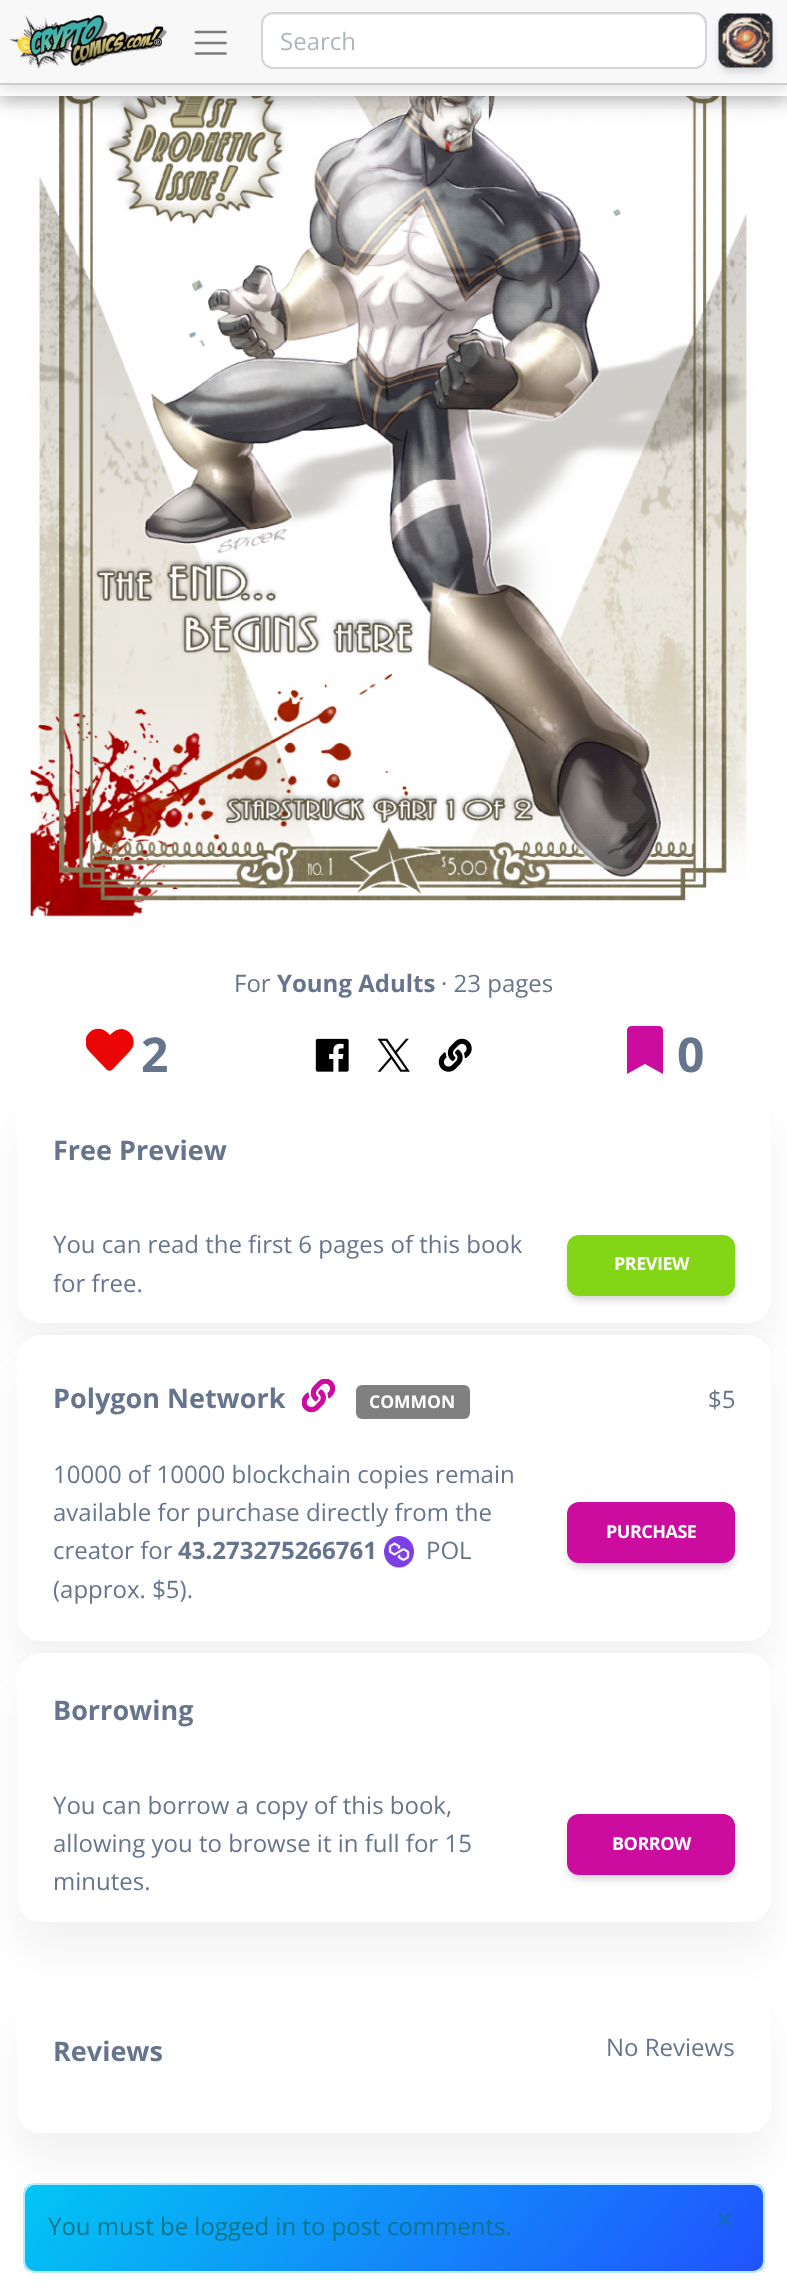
async function draw(canvas) {
	canvas.width = 787;
	canvas.height = 2296;
	const c = canvas.getContext('2d');
	c.miterLimit = 4;
	c.fontKerning = 'normal';
	async function loadImage(src) {
		const img = new Image();
		img.src = src;
		await img.decode();
		return img;
	}
	let gradient;

	c.fillStyle = '#fff';
	c.fillRect(0, 0, 787, 2296);
	c.drawImage(await loadImage('img3.png'), 16, 96, 755, 821);
	c.fillStyle = '#00000026';
	c.filter = 'blur(11px)';
	c.beginPath();
	c.rect(-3, 0, 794, 102);
	c.fill();
	c.filter = 'none';
	c.fillStyle = '#fff';
	c.fillRect(0, 85, 787, 11);
	c.fillStyle = '#00000029';
	c.filter = 'blur(9px)';
	c.beginPath();
	c.rect(0, 3, 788, 84);
	c.fill();
	c.filter = 'none';
	c.save();
	c.beginPath();
	c.rect(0, 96, 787, 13);
	c.clip();
	c.filter = 'blur(9px)';
	c.beginPath();
	c.rect(0, 3, 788, 96);
	c.fill();
	c.filter = 'none';
	c.restore();
	c.fillStyle = '#f8f8f8';
	c.fillRect(0, 0, 787, 83);
	c.fillStyle = '#ccc';
	c.fillRect(0, 83, 787, 2);
	c.drawImage(await loadImage('img1.png'), 9, 15, 158, 54);
	c.beginPath();
	c.moveTo(196, 32);
	c.lineTo(225.5, 32);
	c.moveTo(196, 43);
	c.lineTo(225.5, 43);
	c.moveTo(196, 53.5);
	c.lineTo(225.5, 53.5);
	c.strokeStyle = '#7c7c7c';
	c.lineWidth = 2.7;
	c.lineCap = 'round';
	c.stroke();
	c.fillStyle = '#fff';
	c.beginPath();
	c.roundRect(263, 14, 442, 54, 11);
	c.fill();
	c.fillStyle = '#ececec';
	c.beginPath();
	c.moveTo(273, 15);
	c.lineTo(694, 15);
	c.bezierCurveTo(700, 15, 705, 20, 705, 26);
	c.lineTo(705, 25);
	c.bezierCurveTo(705, 19, 700, 14, 694, 14);
	c.lineTo(274, 14);
	c.bezierCurveTo(271, 14, 268, 16, 266, 18);
	c.bezierCurveTo(268, 16, 270, 15, 273, 15);
	c.closePath();
	c.fill();
	c.beginPath();
	c.roundRect(262, 13, 444, 55, 11);
	c.strokeStyle = '#d2d6da';
	c.lineWidth = 2;
	c.stroke();
	c.font = '24px Open Sans';
	c.fillStyle = '#adb5bd';
	c.fillText('Search', 280, 50);
	c.fillStyle = '#00000012';
	c.filter = 'blur(3px)';
	c.beginPath();
	c.roundRect(720, 18, 51, 51, 11);
	c.fill();
	c.filter = 'none';
	c.fillStyle = '#0000001c';
	c.filter = 'blur(5px)';
	c.beginPath();
	c.roundRect(720, 21, 51, 51, 11);
	c.fill();
	c.filter = 'none';
	c.drawImage(await loadImage('img2.png'), 718, 13, 55, 55);
	c.fillStyle = '#67748e';
	c.fillText('For', 234, 992);
	c.font = 'bold 24px Open Sans';
	c.fillText('Young Adults', 277, 992);
	c.font = '24px Open Sans';
	c.fillText('· 23 pages', 441, 992);
	c.save();
	c.beginPath();
	c.rect(86, 1026, 48, 48);
	c.clip();
	c.fillStyle = '#ea0606';
	c.beginPath();
	c.moveTo(129, 1032);
	c.bezierCurveTo(122, 1026, 115, 1030, 110, 1035);
	c.lineTo(108, 1033);
	c.bezierCurveTo(103, 1028, 95, 1027, 90, 1032);
	c.bezierCurveTo(84, 1037, 84, 1046, 89, 1051);
	c.lineTo(107, 1070);
	c.bezierCurveTo(109, 1071, 110, 1071, 112, 1070);
	c.lineTo(130, 1051);
	c.bezierCurveTo(135, 1046, 135, 1037, 129, 1032);
	c.closePath();
	c.fill();
	c.restore();
	c.font = 'bold 48px Open Sans';
	c.fillText('2', 141, 1072);
	c.drawImage(await loadImage('img4.png'), 315, 1038, 34, 34);
	c.drawImage(await loadImage('img5.png'), 377, 1038, 33, 34);
	c.drawImage(await loadImage('img6.png'), 438, 1038, 34, 34);
	c.fillStyle = '#cb0c9f';
	c.beginPath();
	c.moveTo(627, 1074);
	c.lineTo(627, 1030);
	c.bezierCurveTo(627, 1028, 629, 1026, 632, 1026);
	c.lineTo(659, 1026);
	c.bezierCurveTo(661, 1026, 663, 1028, 663, 1030);
	c.lineTo(663, 1074);
	c.lineTo(645, 1064);
	c.closePath();
	c.fill();
	c.fillStyle = '#67748e';
	c.fillText('0', 677, 1072);
	c.fillStyle = '#0000000d';
	c.filter = 'blur(20px)';
	c.beginPath();
	c.roundRect(17, 1122, 754, 231, 24);
	c.fill();
	c.filter = 'none';
	c.fillStyle = '#fff';
	c.beginPath();
	c.roundRect(17, 1092, 754, 231, 24);
	c.fill();
	c.font = 'bold 27px Open Sans';
	c.fillStyle = '#67748e';
	c.fillText('Free Preview', 53, 1160);
	c.font = '24px Open Sans';
	c.fillText('You can read the first 6 pages of this book', 53, 1253);
	c.fillText('for free.', 53, 1292);
	c.fillStyle = '#00000012';
	c.filter = 'blur(3px)';
	c.beginPath();
	c.roundRect(569, 1239, 165, 59, 11);
	c.fill();
	c.filter = 'none';
	c.fillStyle = '#0000001c';
	c.filter = 'blur(5px)';
	c.beginPath();
	c.roundRect(569, 1242, 165, 59, 11);
	c.fill();
	c.filter = 'none';
	c.fillStyle = '#82d616';
	c.beginPath();
	c.roundRect(567, 1235, 168, 61, 12);
	c.fill();
	c.letterSpacing = '-0.5px';
	c.font = 'bold 18px Open Sans';
	c.fillStyle = '#fff';
	c.fillText('PREVIEW', 614, 1270);
	c.fillStyle = '#0000000d';
	c.filter = 'blur(20px)';
	c.beginPath();
	c.roundRect(17, 1365, 754, 306, 24);
	c.fill();
	c.filter = 'none';
	c.fillStyle = '#fff';
	c.beginPath();
	c.roundRect(17, 1335, 754, 306, 24);
	c.fill();
	c.letterSpacing = '0px';
	c.font = 'bold 27px Open Sans';
	c.fillStyle = '#67748e';
	c.fillText('Polygon Network', 53, 1408);
	c.drawImage(await loadImage('img7.png'), 302, 1379, 33, 34);
	c.fillStyle = '#808080';
	c.beginPath();
	c.roundRect(356, 1385, 114, 34, 6);
	c.fill();
	c.font = 'bold 17.5px Open Sans';
	c.fillStyle = '#fff';
	c.fillText('COMMON', 369, 1408);
	c.font = '24px Open Sans';
	c.fillStyle = '#67748e';
	for (const [text, x, y] of [
		['$5', 708, 1408],
		['10000 of 10000 blockchain copies remain', 53, 1483],
		['available for purchase directly from the', 53, 1521],
		['creator for', 53, 1559],
	]) {
		c.fillText(text, x, y);
	}
	c.font = 'bold 24px Open Sans';
	c.fillText('43.273275266761', 178, 1559);
	c.drawImage(await loadImage('img8.png'), 384, 1536, 30, 32);
	c.font = '24px Open Sans';
	c.fillText('POL', 426, 1559);
	c.fillText('(approx. $5).', 53, 1598);
	c.fillStyle = '#00000012';
	c.filter = 'blur(3px)';
	c.beginPath();
	c.roundRect(569, 1506, 165, 59, 11);
	c.fill();
	c.filter = 'none';
	c.fillStyle = '#0000001c';
	c.filter = 'blur(5px)';
	c.beginPath();
	c.roundRect(569, 1509, 165, 59, 11);
	c.fill();
	c.filter = 'none';
	c.fillStyle = '#cb0c9f';
	c.beginPath();
	c.roundRect(567, 1502, 168, 61, 12);
	c.fill();
	c.letterSpacing = '-0.5px';
	c.font = 'bold 18px Open Sans';
	c.fillStyle = '#fff';
	c.fillText('PURCHASE', 606, 1538);
	c.fillStyle = '#0000000d';
	c.filter = 'blur(20px)';
	c.beginPath();
	c.roundRect(17, 1683, 754, 269, 24);
	c.fill();
	c.filter = 'none';
	c.fillStyle = '#fff';
	c.beginPath();
	c.roundRect(17, 1653, 754, 269, 24);
	c.fill();
	c.letterSpacing = '0px';
	c.font = 'bold 27px Open Sans';
	c.fillStyle = '#67748e';
	c.fillText('Borrowing', 53, 1720);
	c.font = '24px Open Sans';
	for (const [text, x, y] of [
		['You can borrow a copy of this book,', 53, 1814],
		['allowing you to browse it in full for 15', 53, 1852],
		['minutes.', 53, 1890],
	]) {
		c.fillText(text, x, y);
	}
	c.fillStyle = '#00000012';
	c.filter = 'blur(3px)';
	c.beginPath();
	c.roundRect(569, 1818, 165, 59, 11);
	c.fill();
	c.filter = 'none';
	c.fillStyle = '#0000001c';
	c.filter = 'blur(5px)';
	c.beginPath();
	c.roundRect(569, 1821, 165, 59, 11);
	c.fill();
	c.filter = 'none';
	c.fillStyle = '#cb0c9f';
	c.beginPath();
	c.roundRect(567, 1814, 168, 61, 12);
	c.fill();
	c.letterSpacing = '-0.5px';
	c.font = 'bold 18px Open Sans';
	c.fillStyle = '#fff';
	c.fillText('BORROW', 612, 1850);
	c.fillStyle = '#0000000d';
	c.filter = 'blur(20px)';
	c.beginPath();
	c.roundRect(17, 2024, 754, 139, 24);
	c.fill();
	c.filter = 'none';
	c.fillStyle = '#fff';
	c.beginPath();
	c.roundRect(17, 1994, 754, 139, 24);
	c.fill();
	c.letterSpacing = '0px';
	c.font = 'bold 27px Open Sans';
	c.fillStyle = '#67748e';
	c.fillText('Reviews', 53, 2061);
	c.font = '24px Open Sans';
	c.fillText('No Reviews', 606, 2056);
	c.save();
	c.beginPath();
	c.roundRect(23, 2183, 742, 90, 12);
	c.clip();
	gradient = c.createLinearGradient(632, 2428, 155, 2027);
	gradient.addColorStop(0, '#2152ff');
	gradient.addColorStop(1, '#02c6f3');
	c.fillStyle = gradient;
	c.fillRect(24, 2184, 740, 87);
	c.restore();
	c.beginPath();
	c.roundRect(24, 2184, 740, 88, 11);
	c.strokeStyle = '#b9ecf8';
	c.stroke();
	c.fillStyle = '#0e748b';
	c.fillText('You must be logged in to post comments.', 48, 2235);
	c.font = 'bold 33px Open Sans';
	c.fillStyle = '#1669c5';
	c.fillText('×', 715, 2231);
}

draw(document.querySelector('canvas'));
